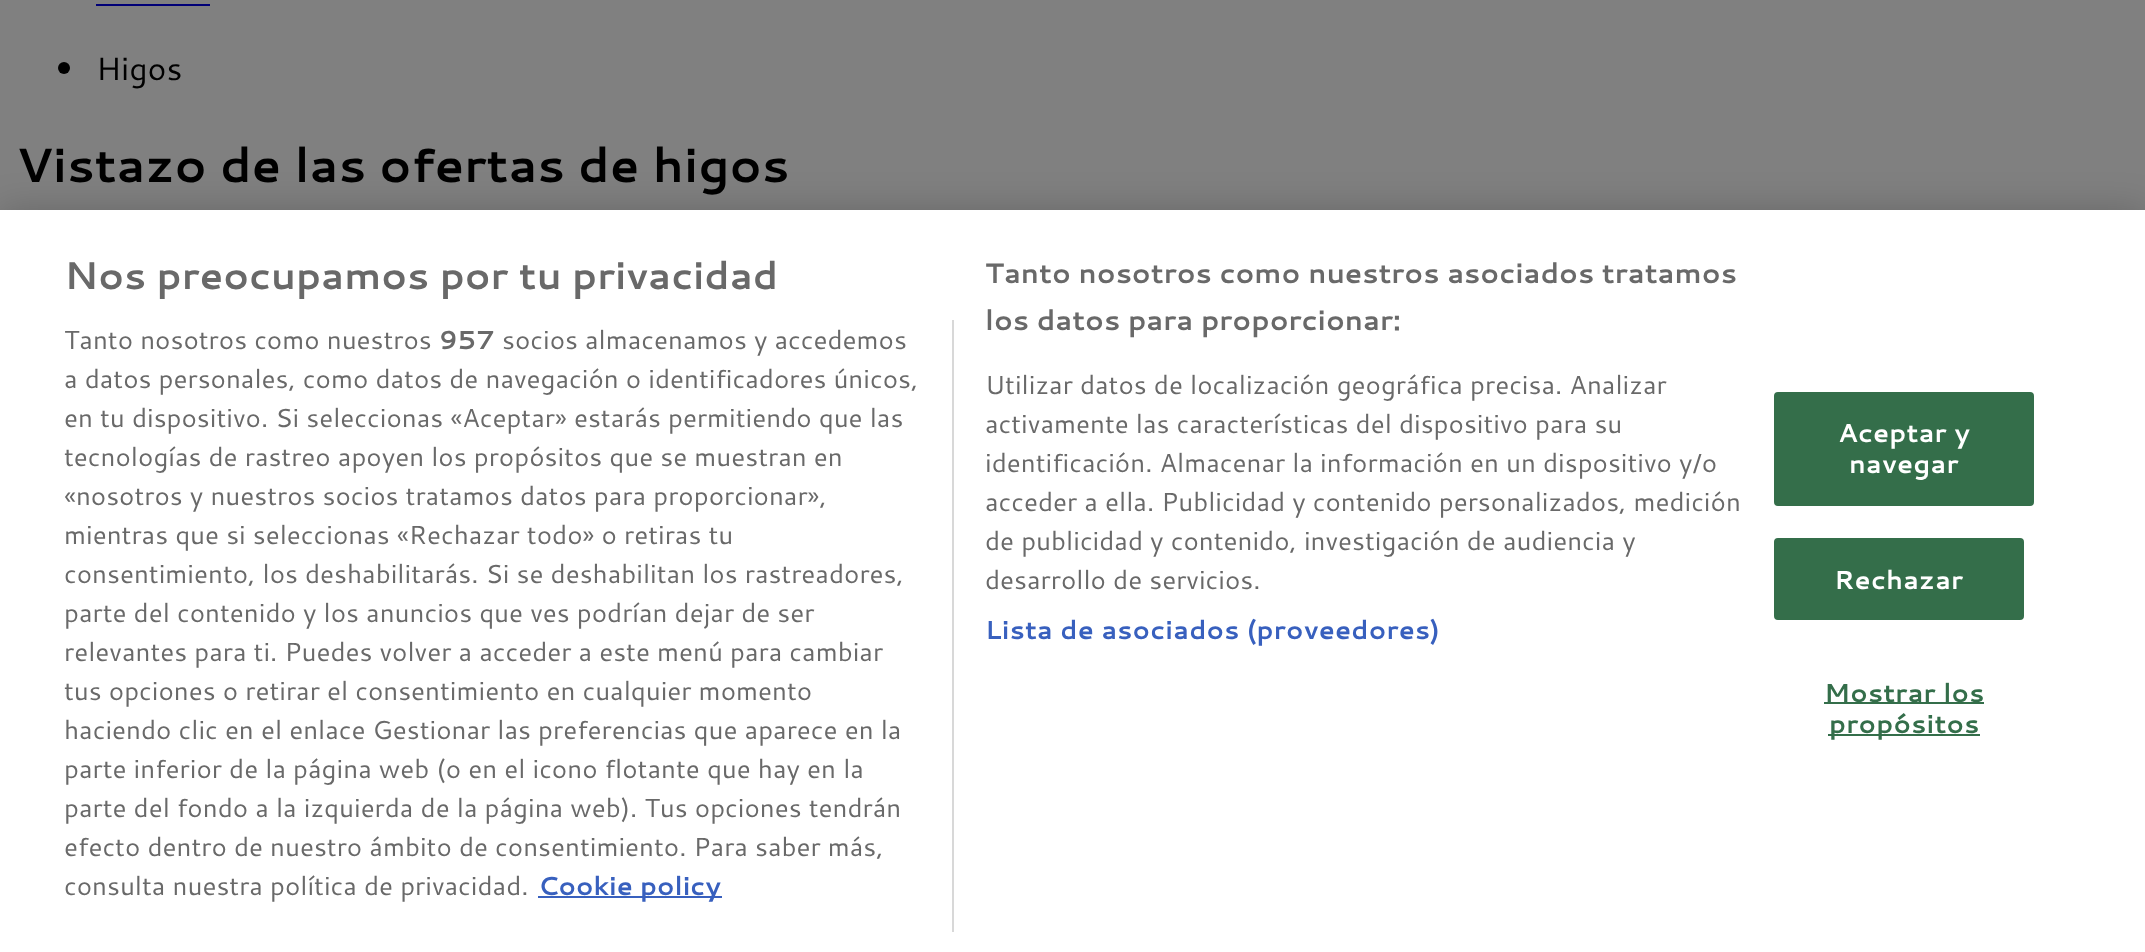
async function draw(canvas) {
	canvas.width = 2145;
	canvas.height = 952;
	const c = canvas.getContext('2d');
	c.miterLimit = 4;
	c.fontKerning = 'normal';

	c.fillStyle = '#808080';
	c.fillRect(0, 0, 2145, 952);
	c.fillStyle = '#007';
	c.fillRect(96, 4, 114, 2);
	c.fillStyle = '#000';
	c.beginPath();
	c.arc(64, 68, 6, 0, 2 * Math.PI);
	c.fill();
	c.font = '32px Cantarell';
	c.fillText('Higos', 96, 80);
	c.font = 'bold 48px Cantarell';
	c.fillText('Vistazo de las ofertas de higos', 16, 182);
	c.fillStyle = '#00000033';
	c.filter = 'blur(18px)';
	c.beginPath();
	c.rect(0, 210, 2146, 742);
	c.fill();
	c.filter = 'none';
	c.fillStyle = '#fff';
	c.fillRect(0, 210, 2145, 742);
	c.font = 'bold 38.4px Cantarell';
	c.fillStyle = '#696969';
	c.fillText('Nos preocupamos por tu privacidad', 64, 289);
	c.font = 'bold 28.15px Cantarell';
	c.fillText('Tanto nosotros como nuestros asociados tratamos', 985, 283);
	c.fillText('los datos para proporcionar:', 985, 330);
	c.font = '26px Cantarell';
	for (const [text, x, y] of [
		['Utilizar datos de localización geográfica precisa. Analizar', 985, 394],
		['activamente las características del dispositivo para su', 985, 433],
		['identificación. Almacenar la información en un dispositivo y/o', 985, 472],
		['acceder a ella. Publicidad y contenido personalizados, medición', 985, 511],
		['de publicidad y contenido, investigación de audiencia y', 985, 550],
		['desarrollo de servicios.', 985, 589],
	]) {
		c.fillText(text, x, y);
	}
	c.letterSpacing = '0.25px';
	c.font = 'bold 26px Cantarell';
	c.fillStyle = '#3860be';
	c.fillText('Lista de asociados (proveedores)', 985, 639);
	c.fillStyle = '#d8d8d8';
	c.fillRect(952, 320, 2, 612);
	c.letterSpacing = '0px';
	c.font = '26px Cantarell';
	c.fillStyle = '#696969';
	c.fillText('Tanto nosotros como nuestros', 64, 349);
	c.font = 'bold 26px Cantarell';
	c.fillText('957', 439, 349);
	c.font = '26px Cantarell';
	for (const [text, x, y] of [
		['socios almacenamos y accedemos', 502, 349],
		['a datos personales, como datos de navegación o identificadores únicos,', 64, 388],
		['en tu dispositivo. Si seleccionas «Aceptar» estarás permitiendo que las', 64, 427],
		['tecnologías de rastreo apoyen los propósitos que se muestran en', 64, 466],
		['«nosotros y nuestros socios tratamos datos para proporcionar»,', 64, 505],
		['mientras que si seleccionas «Rechazar todo» o retiras tu', 64, 544],
		['consentimiento, los deshabilitarás. Si se deshabilitan los rastreadores,', 64, 583],
		['parte del contenido y los anuncios que ves podrían dejar de ser', 64, 622],
		['relevantes para ti. Puedes volver a acceder a este menú para cambiar', 64, 661],
		['tus opciones o retirar el consentimiento en cualquier momento', 64, 700],
		['haciendo clic en el enlace Gestionar las preferencias que aparece en la', 64, 739],
		['parte inferior de la página web (o en el icono flotante que hay en la', 64, 778],
		['parte del fondo a la izquierda de la página web). Tus opciones tendrán', 64, 817],
		['efecto dentro de nuestro ámbito de consentimiento. Para saber más,', 64, 856],
		['consulta nuestra política de privacidad.', 64, 895],
	]) {
		c.fillText(text, x, y);
	}
	c.fillStyle = '#3860be';
	c.fillRect(538, 896, 184, 2);
	c.font = 'bold 26px Cantarell';
	c.fillText('Cookie policy', 538, 895);
	c.fillStyle = '#346e4a';
	c.beginPath();
	c.roundRect(1775, 393, 258, 112, 3);
	c.fill();
	c.strokeStyle = '#346e4a';
	c.lineWidth = 2;
	c.stroke();
	c.letterSpacing = '0.25px';
	c.fillStyle = '#fff';
	c.fillText('Aceptar y', 1838, 442);
	c.fillText('navegar', 1849, 473);
	c.fillStyle = '#346e4a';
	c.beginPath();
	c.roundRect(1775, 539, 248, 80, 3);
	c.fill();
	c.stroke();
	c.fillStyle = '#fff';
	c.fillText('Rechazar', 1834, 589);
	c.fillStyle = '#346e4a';
	c.fillRect(1824, 702, 160, 2);
	c.fillText('Mostrar los', 1824, 702);
	c.fillRect(1828, 734, 152, 2);
	c.fillText('propósitos', 1829, 733);
}

draw(document.querySelector('canvas'));
